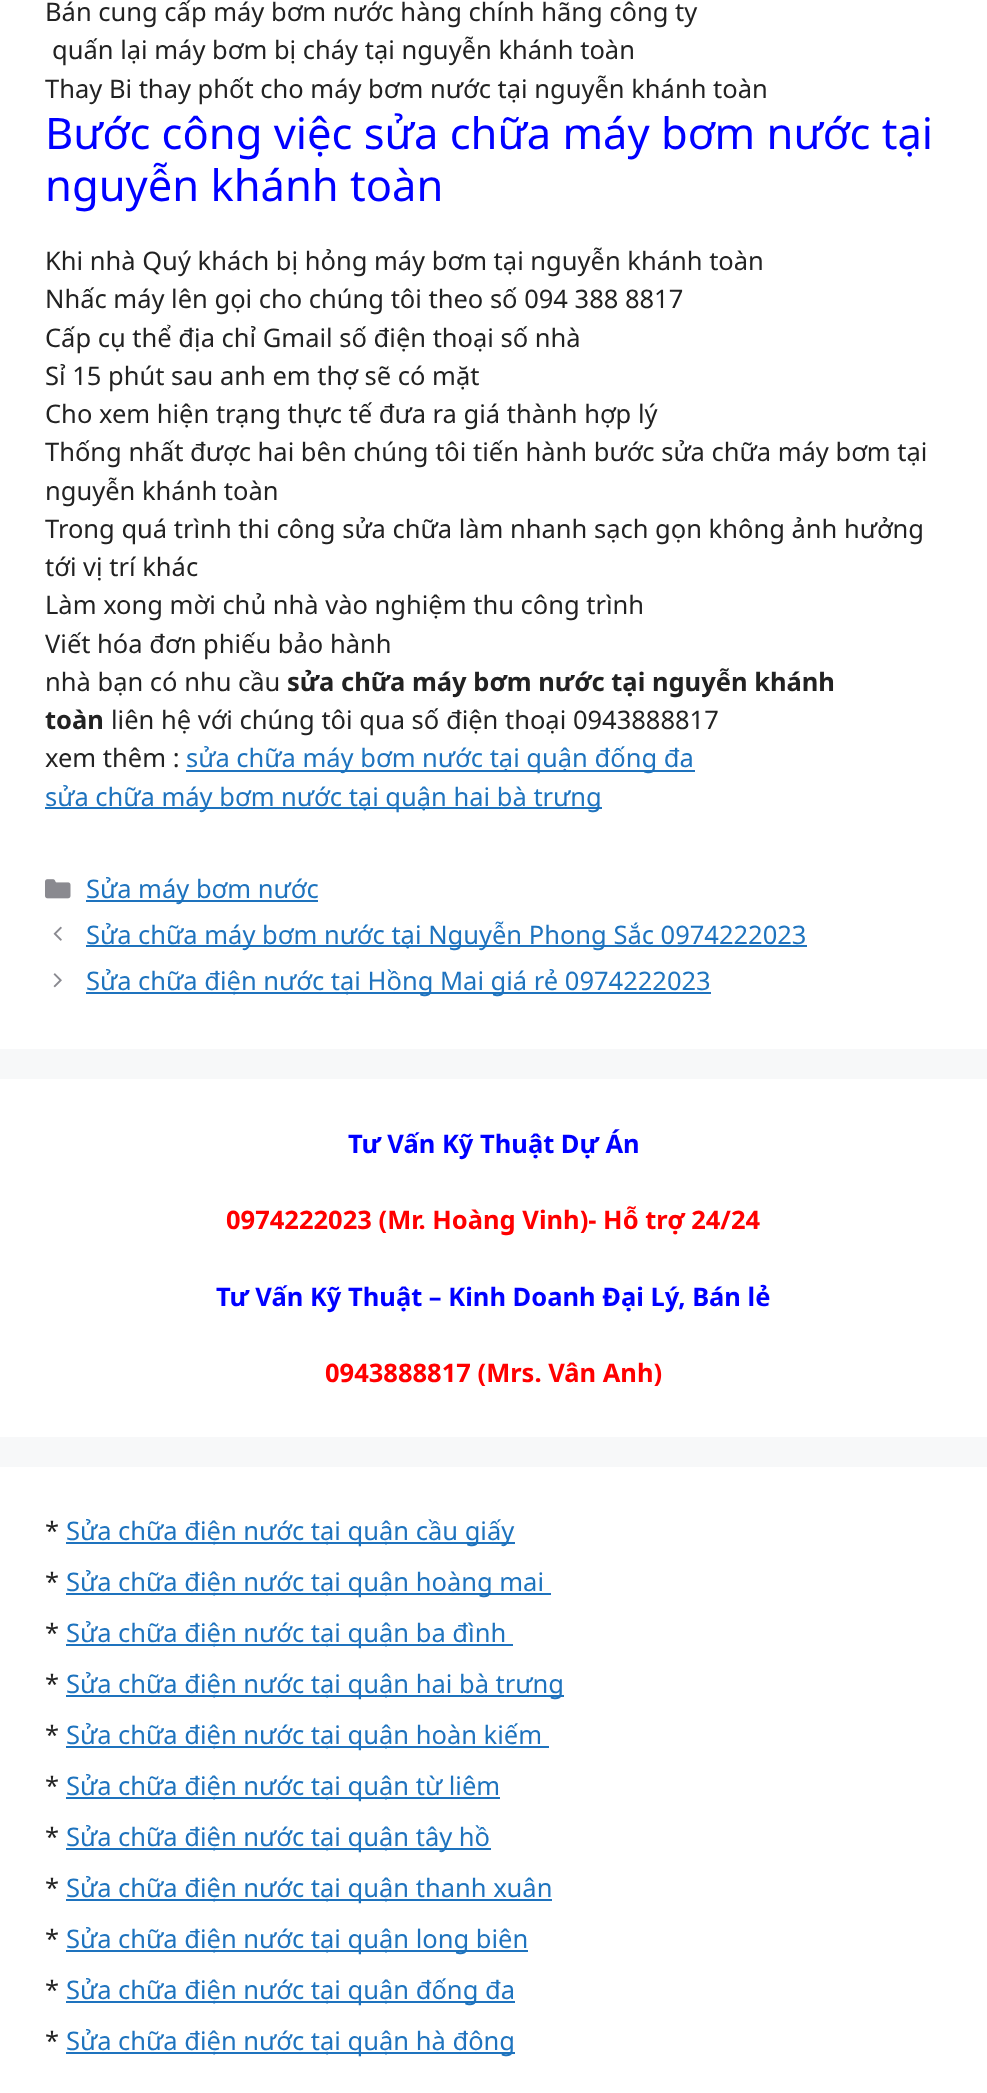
async function draw(canvas) {
	canvas.width = 987;
	canvas.height = 2093;
	const c = canvas.getContext('2d');
	c.miterLimit = 4;
	c.fontKerning = 'normal';
	async function loadImage(src) {
		const img = new Image();
		img.src = src;
		await img.decode();
		return img;
	}

	c.fillStyle = '#f7f8f9';
	c.fillRect(0, 0, 987, 2093);
	c.fillStyle = '#fff';
	c.fillRect(0, 0, 987, 1049);
	c.font = '25.5px Noto Sans';
	c.fillStyle = '#222';
	for (const [text, x, y] of [
		['Bán cung cấp máy bơm nước hàng chính hãng công ty', 45, 21],
		['quấn lại máy bơm bị cháy tại nguyễn khánh toàn', 52, 59],
		['Thay Bi thay phốt cho máy bơm nước tại nguyễn khánh toàn', 45, 98],
	]) {
		c.fillText(text, x, y);
	}
	c.font = '43.5px Noto Sans';
	c.fillStyle = '#00f';
	c.fillText('Bước công việc sửa chữa máy bơm nước tại', 45, 149);
	c.fillText('nguyễn khánh toàn', 45, 201);
	c.font = '25.5px Noto Sans';
	c.fillStyle = '#222';
	for (const [text, x, y] of [
		['Khi nhà Quý khách bị hỏng máy bơm tại nguyễn khánh toàn', 45, 270],
		['Nhấc máy lên gọi cho chúng tôi theo số 094 388 8817', 45, 308],
		['Cấp cụ thể địa chỉ Gmail số điện thoại số nhà', 45, 347],
		['Sỉ 15 phút sau anh em thợ sẽ có mặt', 45, 385],
		['Cho xem hiện trạng thực tế đưa ra giá thành hợp lý', 45, 423],
		['Thống nhất được hai bên chúng tôi tiến hành bước sửa chữa máy bơm tại', 45, 461],
		['nguyễn khánh toàn', 45, 500],
		['Trong quá trình thi công sửa chữa làm nhanh sạch gọn không ảnh hưởng', 45, 538],
		['tới vị trí khác', 45, 576],
		['Làm xong mời chủ nhà vào nghiệm thu công trình', 45, 614],
		['Viết hóa đơn phiếu bảo hành', 45, 653],
		['nhà bạn có nhu cầu', 45, 691],
	]) {
		c.fillText(text, x, y);
	}
	c.font = 'bold 25.5px Noto Sans';
	c.fillText('sửa chữa máy bơm nước tại nguyễn khánh', 287, 691);
	c.fillText('toàn', 45, 729);
	c.font = '25.5px Noto Sans';
	c.fillText('liên hệ với chúng tôi qua số điện thoại 0943888817', 111, 729);
	c.fillText('xem thêm :', 45, 767);
	c.fillStyle = '#1e73be';
	c.fillRect(186, 770, 509, 2);
	c.fillText('sửa chữa máy bơm nước tại quận đống đa', 186, 767);
	c.fillRect(45, 807, 557, 2);
	c.fillText('sửa chữa máy bơm nước tại quận hai bà trưng', 45, 806);
	c.drawImage(await loadImage('img1.png'), 45, 879, 26, 20);
	c.fillRect(86, 900, 232, 2);
	c.fillText('Sửa máy bơm nước', 86, 898);
	c.drawImage(await loadImage('img2.png'), 53, 926, 9, 15);
	c.fillRect(86, 945, 721, 2);
	c.fillText('Sửa chữa máy bơm nước tại Nguyễn Phong Sắc 0974222023', 86, 944);
	c.drawImage(await loadImage('img3.png'), 53, 973, 9, 15);
	c.fillRect(86, 992, 625, 2);
	c.fillText('Sửa chữa điện nước tại Hồng Mai giá rẻ 0974222023', 86, 990);
	c.fillStyle = '#fff';
	c.fillRect(0, 1079, 987, 358);
	c.font = 'bold 25.5px Noto Sans';
	c.fillStyle = '#00f';
	c.fillText('Tư Vấn Kỹ Thuật Dự Án', 348, 1153);
	c.fillStyle = '#f00';
	c.fillText('0974222023 (Mr. Hoàng Vinh)- Hỗ trợ 24/24', 226, 1229);
	c.fillStyle = '#00f';
	c.fillText('Tư Vấn Kỹ Thuật – Kinh Doanh Đại Lý, Bán lẻ', 216, 1306);
	c.fillStyle = '#f00';
	c.fillText('0943888817 (Mrs. Vân Anh)', 325, 1382);
	c.fillStyle = '#fff';
	c.fillRect(0, 1467, 987, 626);
	c.font = '25.5px Noto Sans';
	c.fillStyle = '#222';
	c.fillText('*', 45, 1540);
	c.fillStyle = '#1e73be';
	c.fillRect(66, 1542, 449, 2);
	c.fillText('Sửa chữa điện nước tại quận cầu giấy', 66, 1540);
	c.fillStyle = '#222';
	c.fillText('*', 45, 1591);
	c.fillStyle = '#1e73be';
	c.fillRect(66, 1593, 485, 2);
	c.fillText('Sửa chữa điện nước tại quận hoàng mai', 66, 1591);
	c.fillStyle = '#222';
	c.fillText('*', 45, 1642);
	c.fillStyle = '#1e73be';
	c.fillRect(66, 1644, 447, 2);
	c.fillText('Sửa chữa điện nước tại quận ba đình', 66, 1642);
	c.fillStyle = '#222';
	c.fillText('*', 45, 1693);
	c.fillStyle = '#1e73be';
	c.fillRect(66, 1695, 498, 2);
	c.fillText('Sửa chữa điện nước tại quận hai bà trưng', 66, 1693);
	c.fillStyle = '#222';
	c.fillText('*', 45, 1744);
	c.fillStyle = '#1e73be';
	c.fillRect(66, 1746, 483, 2);
	c.fillText('Sửa chữa điện nước tại quận hoàn kiếm', 66, 1744);
	c.fillStyle = '#222';
	c.fillText('*', 45, 1795);
	c.fillStyle = '#1e73be';
	c.fillRect(66, 1797, 434, 2);
	c.fillText('Sửa chữa điện nước tại quận từ liêm', 66, 1795);
	c.fillStyle = '#222';
	c.fillText('*', 45, 1846);
	c.fillStyle = '#1e73be';
	c.fillRect(66, 1848, 425, 2);
	c.fillText('Sửa chữa điện nước tại quận tây hồ', 66, 1846);
	c.fillStyle = '#222';
	c.fillText('*', 45, 1897);
	c.fillStyle = '#1e73be';
	c.fillRect(66, 1899, 486, 2);
	c.fillText('Sửa chữa điện nước tại quận thanh xuân', 66, 1897);
	c.fillStyle = '#222';
	c.fillText('*', 45, 1948);
	c.fillStyle = '#1e73be';
	c.fillRect(66, 1950, 462, 2);
	c.fillText('Sửa chữa điện nước tại quận long biên', 66, 1948);
	c.fillStyle = '#222';
	c.fillText('*', 45, 1999);
	c.fillStyle = '#1e73be';
	c.fillRect(66, 2001, 449, 2);
	c.fillText('Sửa chữa điện nước tại quận đống đa', 66, 1999);
	c.fillStyle = '#222';
	c.fillText('*', 45, 2050);
	c.fillStyle = '#1e73be';
	c.fillRect(66, 2052, 449, 2);
	c.fillText('Sửa chữa điện nước tại quận hà đông', 66, 2050);
}

draw(document.querySelector('canvas'));
